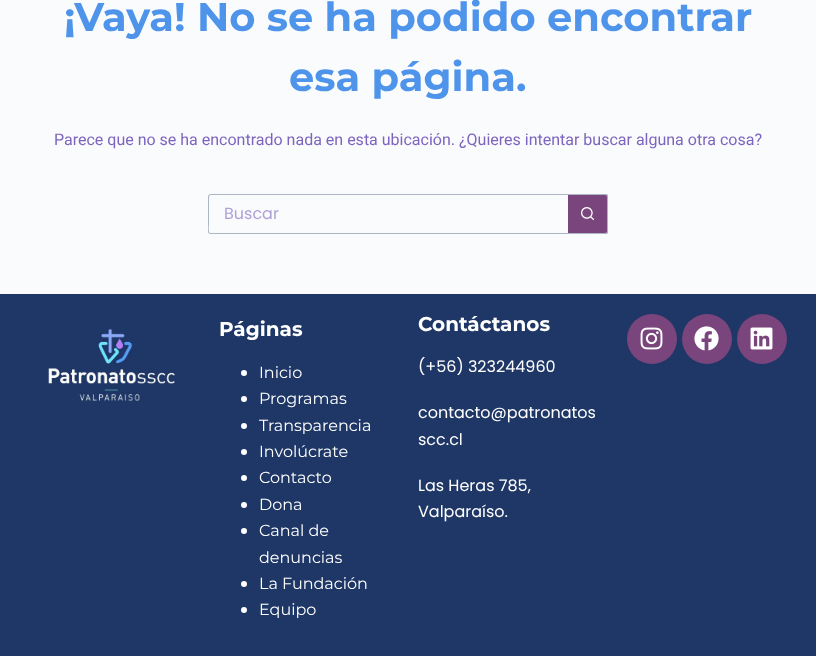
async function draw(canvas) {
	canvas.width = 816;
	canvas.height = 656;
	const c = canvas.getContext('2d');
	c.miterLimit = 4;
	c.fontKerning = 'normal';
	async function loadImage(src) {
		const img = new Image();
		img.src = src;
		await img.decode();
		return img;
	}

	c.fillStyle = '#fafbfc';
	c.fillRect(0, 0, 816, 656);
	c.font = 'bold 40px Montserrat';
	c.fillStyle = '#4e94ea';
	c.fillText('¡Vaya! No se ha podido encontrar', 64, 31);
	c.fillText('esa página.', 289, 91);
	c.font = '16px Roboto';
	c.fillStyle = '#7d64be';
	c.fillText('Parece que no se ha encontrado nada en esta ubicación. ¿Quieres intentar buscar alguna otra cosa?', 54, 145);
	c.fillStyle = '#adb4c4';
	c.beginPath();
	c.moveTo(211, 194);
	c.lineTo(568, 194);
	c.lineTo(568, 234);
	c.lineTo(211, 234);
	c.bezierCurveTo(209, 234, 208, 233, 208, 231);
	c.lineTo(208, 197);
	c.bezierCurveTo(208, 195, 209, 194, 211, 194);
	c.closePath();
	c.moveTo(211, 195);
	c.lineTo(568, 195);
	c.lineTo(568, 233);
	c.lineTo(210, 233);
	c.bezierCurveTo(208, 231, 209, 226, 209, 225);
	c.lineTo(209, 197);
	c.lineTo(210, 195);
	c.closePath();
	c.fill('evenodd');
	c.font = '16px Poppins';
	c.fillStyle = '#afa0d7';
	c.fillText('Buscar', 224, 219);
	c.fillStyle = '#7a457c';
	c.beginPath();
	c.roundRect(568, 194, 40, 40, [0, 3, 3, 0]);
	c.fill();
	c.fillStyle = '#adb4c4';
	c.beginPath();
	c.moveTo(568, 194);
	c.lineTo(605, 194);
	c.bezierCurveTo(607, 194, 608, 195, 608, 197);
	c.lineTo(608, 231);
	c.bezierCurveTo(608, 233, 607, 234, 605, 234);
	c.lineTo(568, 234);
	c.closePath();
	c.moveTo(568, 195);
	c.lineTo(605, 195);
	c.bezierCurveTo(606, 195, 607, 196, 607, 197);
	c.lineTo(607, 231);
	c.bezierCurveTo(607, 232, 606, 233, 605, 233);
	c.lineTo(568, 233);
	c.closePath();
	c.fill('evenodd');
	c.drawImage(await loadImage('img1.png'), 581, 207, 13, 13);
	c.fillStyle = '#1f3766';
	c.fillRect(0, 294, 816, 362);
	c.drawImage(await loadImage('img2.png'), 48, 329, 127, 72);
	c.font = 'bold 20px Montserrat';
	c.fillStyle = '#fff';
	c.fillText('Páginas', 219, 336);
	c.beginPath();
	c.arc(244, 373, 3, 0, 2 * Math.PI);
	c.fill();
	c.font = '100 16px Montserrat';
	c.fillText('Inicio', 259, 378);
	c.beginPath();
	c.arc(244, 399, 3, 0, 2 * Math.PI);
	c.fill();
	c.fillText('Programas', 259, 404);
	c.beginPath();
	c.arc(244, 426, 3, 0, 2 * Math.PI);
	c.fill();
	c.fillText('Transparencia', 259, 431);
	c.beginPath();
	c.arc(244, 452, 3, 0, 2 * Math.PI);
	c.fill();
	c.fillText('Involúcrate', 259, 457);
	c.beginPath();
	c.arc(244, 478, 3, 0, 2 * Math.PI);
	c.fill();
	c.fillText('Contacto', 259, 483);
	c.beginPath();
	c.arc(244, 505, 3, 0, 2 * Math.PI);
	c.fill();
	c.fillText('Dona', 259, 510);
	c.beginPath();
	c.arc(244, 531, 3, 0, 2 * Math.PI);
	c.fill();
	c.fillText('Canal de', 259, 536);
	c.fillText('denuncias', 259, 563);
	c.beginPath();
	c.arc(244, 584, 3, 0, 2 * Math.PI);
	c.fill();
	c.fillText('La Fundación', 259, 589);
	c.beginPath();
	c.arc(244, 610, 3, 0, 2 * Math.PI);
	c.fill();
	c.fillText('Equipo', 259, 615);
	c.font = 'bold 20px Montserrat';
	c.fillText('Contáctanos', 418, 331);
	c.font = '16px Poppins';
	for (const [text, x, y] of [
		['(+56) 323244960', 418, 372],
		['contacto@patronatos', 418, 418],
		['scc.cl', 418, 445],
		['Las Heras 785,', 418, 491],
		['Valparaíso.', 418, 517],
	]) {
		c.fillText(text, x, y);
	}
	c.fillStyle = '#7a457c';
	c.beginPath();
	c.arc(652, 339, 25, 0, 2 * Math.PI);
	c.fill();
	c.drawImage(await loadImage('img3.png'), 640, 327, 23, 23);
	c.beginPath();
	c.arc(707, 339, 25, 0, 2 * Math.PI);
	c.fill();
	c.drawImage(await loadImage('img4.png'), 694, 326, 25, 25);
	c.beginPath();
	c.arc(762, 339, 25, 0, 2 * Math.PI);
	c.fill();
	c.drawImage(await loadImage('img5.png'), 750, 327, 23, 23);
}

draw(document.querySelector('canvas'));
